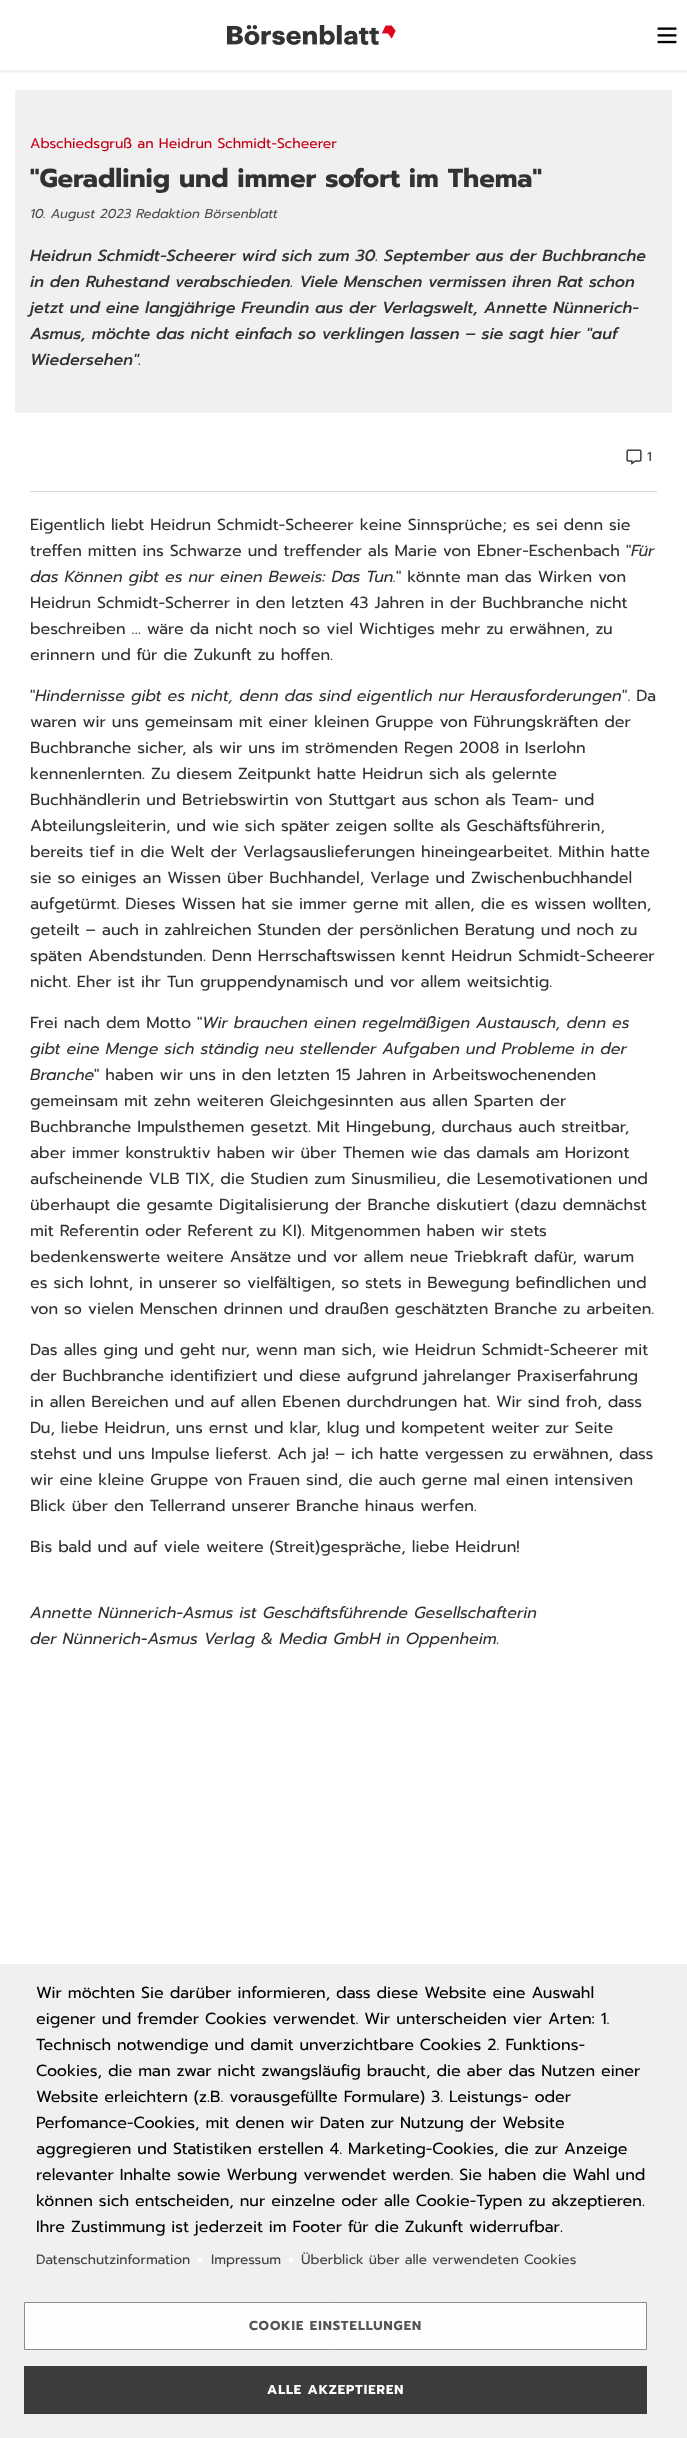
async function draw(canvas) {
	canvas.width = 687;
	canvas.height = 2438;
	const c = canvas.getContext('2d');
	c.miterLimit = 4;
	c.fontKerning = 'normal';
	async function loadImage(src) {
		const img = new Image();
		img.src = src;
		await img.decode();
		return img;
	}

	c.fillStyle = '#fff';
	c.fillRect(0, 0, 687, 2438);
	c.save();
	c.beginPath();
	c.rect(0, 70, 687, 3);
	c.clip();
	c.fillStyle = '#0000000d';
	c.filter = 'blur(1.5px)';
	c.beginPath();
	c.rect(-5, 3, 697, 70);
	c.fill();
	c.filter = 'none';
	c.restore();
	c.drawImage(await loadImage('img1.png'), 227, 25, 169, 20);
	c.drawImage(await loadImage('img2.png'), 657, 27, 20, 17);
	c.fillStyle = '#f0f0f0';
	c.fillRect(15, 90, 657, 323);
	c.font = '14px Prompt';
	c.fillStyle = '#c10017';
	c.fillText('Abschiedsgruß an Heidrun Schmidt-Scheerer', 30, 148);
	c.font = 'bold 26px Prompt';
	c.fillStyle = '#323232';
	c.fillText('"Geradlinig und immer sofort im Thema"', 30, 187);
	c.font = 'italic 13px Prompt';
	c.fillStyle = '#4e4e4e';
	c.fillText('10. August 2023 Redaktion Börsenblatt', 30, 218);
	c.font = 'italic 500 16px Prompt';
	c.fillStyle = '#323232';
	for (const [text, x, y] of [
		['Heidrun Schmidt-Scheerer wird sich zum 30. September aus der Buchbranche', 30, 261],
		['in den Ruhestand verabschieden. Viele Menschen vermissen ihren Rat schon', 30, 287],
		['jetzt und eine langjährige Freundin aus der Verlagswelt, Annette Nünnerich-', 30, 313],
		['Asmus, möchte das nicht einfach so verklingen lassen – sie sagt hier "auf', 30, 339],
		['Wiedersehen".', 30, 365],
	]) {
		c.fillText(text, x, y);
	}
	c.fillStyle = '#d8d8d8';
	c.fillRect(30, 491, 627, 1);
	c.drawImage(await loadImage('img3.png'), 626, 449, 16, 16);
	c.font = '13px Prompt';
	c.fillStyle = '#323232';
	c.fillText('1', 647, 461);
	c.font = '16px Prompt';
	c.fillText('Eigentlich liebt Heidrun Schmidt-Scheerer keine Sinnsprüche; es sei denn sie', 30, 530);
	c.fillText('treffen mitten ins Schwarze und treffender als Marie von Ebner-Eschenbach "', 30, 556);
	c.font = 'italic 16px Prompt';
	c.fillText('Für', 631, 556);
	c.fillText('das Können gibt es nur einen Beweis: Das Tun.', 30, 582);
	c.font = '16px Prompt';
	for (const [text, x, y] of [
		['" könnte man das Wirken von', 396, 582],
		['Heidrun Schmidt-Scherrer in den letzten 43 Jahren in der Buchbranche nicht', 30, 608],
		['beschreiben … wäre da nicht noch so viel Wichtiges mehr zu erwähnen, zu', 30, 634],
		['erinnern und für die Zukunft zu hoffen.', 30, 660],
		['"', 30, 701],
	]) {
		c.fillText(text, x, y);
	}
	c.font = 'italic 16px Prompt';
	c.fillText('Hindernisse gibt es nicht, denn das sind eigentlich nur Herausforderungen', 35, 701);
	c.font = '16px Prompt';
	for (const [text, x, y] of [
		['". Da', 622, 701],
		['waren wir uns gemeinsam mit einer kleinen Gruppe von Führungskräften der', 30, 727],
		['Buchbranche sicher, als wir uns im strömenden Regen 2008 in Iserlohn', 30, 753],
		['kennenlernten. Zu diesem Zeitpunkt hatte Heidrun sich als gelernte', 30, 779],
		['Buchhändlerin und Betriebswirtin von Stuttgart aus schon als Team- und', 30, 805],
		['Abteilungsleiterin, und wie sich später zeigen sollte als Geschäftsführerin,', 30, 831],
		['bereits tief in die Welt der Verlagsauslieferungen hineingearbeitet. Mithin hatte', 30, 857],
		['sie so einiges an Wissen über Buchhandel, Verlage und Zwischenbuchhandel', 30, 883],
		['aufgetürmt. Dieses Wissen hat sie immer gerne mit allen, die es wissen wollten,', 30, 909],
		['geteilt – auch in zahlreichen Stunden der persönlichen Beratung und noch zu', 30, 935],
		['späten Abendstunden. Denn Herrschaftswissen kennt Heidrun Schmidt-Scheerer', 30, 961],
		['nicht. Eher ist ihr Tun gruppendynamisch und vor allem weitsichtig.', 30, 987],
		['Frei nach dem Motto "', 30, 1028],
	]) {
		c.fillText(text, x, y);
	}
	c.font = 'italic 16px Prompt';
	for (const [text, x, y] of [
		['Wir brauchen einen regelmäßigen Austausch, denn es', 202, 1028],
		['gibt eine Menge sich ständig neu stellender Aufgaben und Probleme in der', 30, 1054],
		['Branche', 30, 1080],
	]) {
		c.fillText(text, x, y);
	}
	c.font = '16px Prompt';
	for (const [text, x, y] of [
		['" haben wir uns in den letzten 15 Jahren in Arbeitswochenenden', 94, 1080],
		['gemeinsam mit zehn weiteren Gleichgesinnten aus allen Sparten der', 30, 1106],
		['Buchbranche Impulsthemen gesetzt. Mit Hingebung, durchaus auch streitbar,', 30, 1132],
		['aber immer konstruktiv haben wir über Themen wie das damals am Horizont', 30, 1158],
		['aufscheinende VLB TIX, die Studien zum Sinusmilieu, die Lesemotivationen und', 30, 1184],
		['überhaupt die gesamte Digitalisierung der Branche diskutiert (dazu demnächst', 30, 1210],
		['mit Referentin oder Referent zu KI). Mitgenommen haben wir stets', 30, 1236],
		['bedenkenswerte weitere Ansätze und vor allem neue Triebkraft dafür, warum', 30, 1262],
		['es sich lohnt, in unserer so vielfältigen, so stets in Bewegung befindlichen und', 30, 1288],
		['von so vielen Menschen drinnen und draußen geschätzten Branche zu arbeiten.', 30, 1314],
		['Das alles ging und geht nur, wenn man sich, wie Heidrun Schmidt-Scheerer mit', 30, 1355],
		['der Buchbranche identifiziert und diese aufgrund jahrelanger Praxiserfahrung', 30, 1381],
		['in allen Bereichen und auf allen Ebenen durchdrungen hat. Wir sind froh, dass', 30, 1407],
		['Du, liebe Heidrun, uns ernst und klar, klug und kompetent weiter zur Seite', 30, 1433],
		['stehst und uns Impulse lieferst. Ach ja! – ich hatte vergessen zu erwähnen, dass', 30, 1459],
		['wir eine kleine Gruppe von Frauen sind, die auch gerne mal einen intensiven', 30, 1485],
		['Blick über den Tellerrand unserer Branche hinaus werfen.', 30, 1511],
		['Bis bald und auf viele weitere (Streit)gespräche, liebe Heidrun!', 30, 1552],
	]) {
		c.fillText(text, x, y);
	}
	c.font = 'italic 16px Prompt';
	c.fillText('Annette Nünnerich-Asmus ist Geschäftsführende Gesellschafterin', 30, 1618);
	c.fillText('der Nünnerich-Asmus Verlag & Media GmbH in Oppenheim.', 30, 1644);
	c.fillStyle = '#f0f0f0';
	c.fillRect(0, 1964, 687, 474);
	c.font = '16px Prompt';
	c.fillStyle = '#000';
	for (const [text, x, y] of [
		['Wir möchten Sie darüber informieren, dass diese Website eine Auswahl', 36, 1998],
		['eigener und fremder Cookies verwendet. Wir unterscheiden vier Arten: 1.', 36, 2024],
		['Technisch notwendige und damit unverzichtbare Cookies 2. Funktions-', 36, 2050],
		['Cookies, die man zwar nicht zwangsläufig braucht, die aber das Nutzen einer', 36, 2076],
		['Website erleichtern (z.B. vorausgefüllte Formulare) 3. Leistungs- oder', 36, 2102],
		['Perfomance-Cookies, mit denen wir Daten zur Nutzung der Website', 36, 2128],
		['aggregieren und Statistiken erstellen 4. Marketing-Cookies, die zur Anzeige', 36, 2154],
		['relevanter Inhalte sowie Werbung verwendet werden. Sie haben die Wahl und', 36, 2180],
		['können sich entscheiden, nur einzelne oder alle Cookie-Typen zu akzeptieren.', 36, 2206],
		['Ihre Zustimmung ist jederzeit im Footer für die Zukunft widerrufbar.', 36, 2232],
	]) {
		c.fillText(text, x, y);
	}
	c.font = '13.6px Prompt';
	c.fillStyle = '#424242';
	c.fillText('Datenschutzinformation', 36, 2264);
	c.fillStyle = '#fff';
	c.fillRect(198, 2258, 4, 4);
	c.fillStyle = '#424242';
	c.fillText('Impressum', 211, 2264);
	c.fillStyle = '#fff';
	c.fillRect(289, 2258, 4, 4);
	c.fillStyle = '#424242';
	c.fillText('Überblick über alle verwendeten Cookies', 301, 2264);
	c.fillStyle = '#fefefe';
	c.beginPath();
	c.rect(24.5, 2302.5, 622, 47);
	c.fill();
	c.strokeStyle = '#8b8b8b';
	c.stroke();
	c.letterSpacing = '1px';
	c.font = 'bold 13px Prompt';
	c.fillStyle = '#565656';
	c.fillText('COOKIE EINSTELLUNGEN', 249, 2330);
	c.fillStyle = '#3c3c3c';
	c.fillRect(24, 2366, 623, 48);
	c.fillStyle = '#fefefe';
	c.fillText('ALLE AKZEPTIEREN', 267, 2394);
}

draw(document.querySelector('canvas'));
